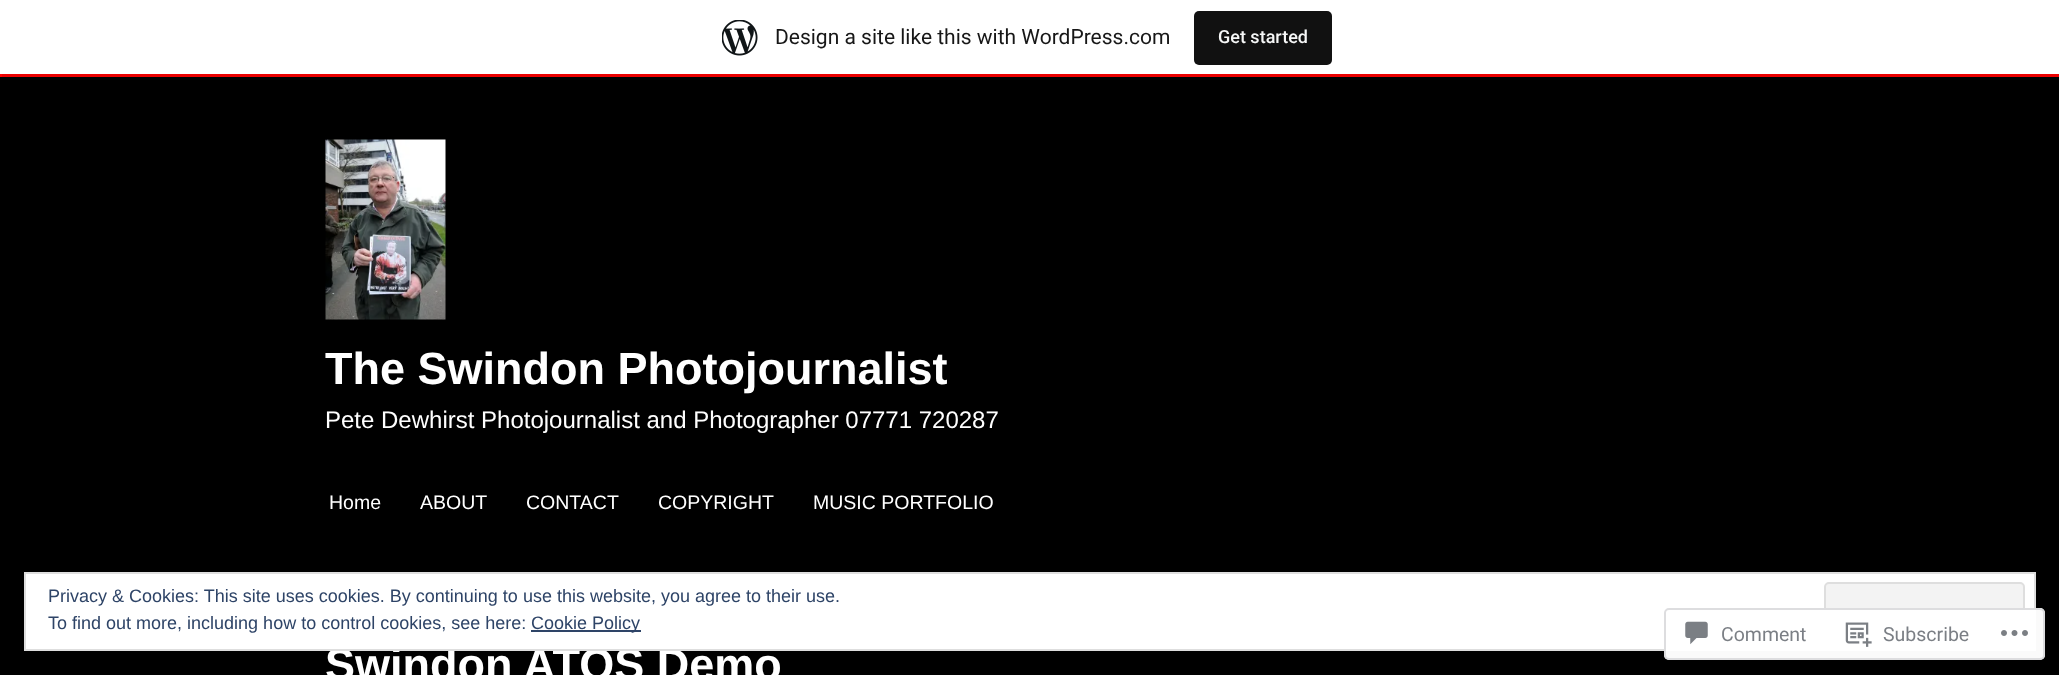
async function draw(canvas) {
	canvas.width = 2059;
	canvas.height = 675;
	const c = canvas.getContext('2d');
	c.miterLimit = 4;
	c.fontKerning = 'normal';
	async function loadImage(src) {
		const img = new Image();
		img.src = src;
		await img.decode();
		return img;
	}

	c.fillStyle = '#000';
	c.fillRect(0, 0, 2059, 675);
	c.fillStyle = '#f00';
	c.fillRect(0, 74, 2059, 3);
	c.fillStyle = '#00000014';
	c.beginPath();
	c.moveTo(2, 74);
	c.lineTo(2, 78);
	c.lineTo(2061, 78);
	c.lineTo(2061, 5);
	c.lineTo(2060, 5);
	c.lineTo(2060, 74);
	c.closePath();
	c.fill();
	c.fillStyle = '#fff';
	c.fillRect(0, 0, 2059, 74);
	c.drawImage(await loadImage('img1.png'), 722, 20, 36, 36);
	c.font = '21px Roboto';
	c.fillStyle = '#171717';
	c.fillText('Design a site like this with WordPress.com', 775, 44);
	c.fillStyle = '#111';
	c.beginPath();
	c.roundRect(1194, 11, 138, 54, 5);
	c.fill();
	c.font = '500 18px Roboto';
	c.fillStyle = '#f6f7f7';
	c.fillText('Get started', 1218, 43);
	c.drawImage(await loadImage('img2.png'), 325, 139, 121, 181);
	c.font = 'bold 45px Liberation Sans';
	c.fillStyle = '#fff';
	c.fillText('The Swindon Photojournalist', 325, 384);
	c.font = '24px Liberation Sans';
	c.fillText('Pete Dewhirst Photojournalist and Photographer 07771 720287', 325, 428);
	c.font = '19.5px Liberation Sans';
	for (const [text, x, y] of [
		['Home', 329, 509],
		['ABOUT', 420, 509],
		['CONTACT', 526, 509],
		['COPYRIGHT', 658, 509],
		['MUSIC PORTFOLIO', 813, 509],
	]) {
		c.fillText(text, x, y);
	}
	c.font = 'bold 45px Liberation Sans';
	c.fillText('Swindon ATOS Demo', 325, 680);
	c.beginPath();
	c.rect(25, 573, 2010, 77);
	c.fill();
	c.strokeStyle = '#dedede';
	c.lineWidth = 2;
	c.stroke();
	c.font = '18px Liberation Sans';
	c.fillStyle = '#2e4467';
	c.fillText('Privacy & Cookies: This site uses cookies. By continuing to use this website, you agree to their use.', 48, 602);
	c.fillStyle = '#f3f3f3';
	c.beginPath();
	c.roundRect(1825, 583, 199, 57, 4);
	c.fill();
	c.stroke();
	c.fillStyle = '#2e4467';
	c.fillText('To find out more, including how to control cookies, see here:', 48, 629);
	c.fillRect(531, 630, 110, 2);
	c.fillText('Cookie Policy', 531, 629);
	c.fillStyle = '#fffffffa';
	c.beginPath();
	c.roundRect(1664, 608, 381, 52, 5);
	c.fill();
	c.beginPath();
	c.roundRect(1665, 609, 379, 50, 4);
	c.strokeStyle = '#dcdcdefa';
	c.stroke();
	c.drawImage(await loadImage('img3.png'), 1685, 621, 23, 24);
	c.font = '19.5px Roboto';
	c.fillStyle = '#7b7f85';
	c.fillText('Comment', 1721, 641);
	c.drawImage(await loadImage('img4.png'), 1845, 622, 27, 25);
	c.fillText('Subscribe', 1883, 641);
	c.drawImage(await loadImage('img5.png'), 2001, 630, 27, 6);
}

draw(document.querySelector('canvas'));
